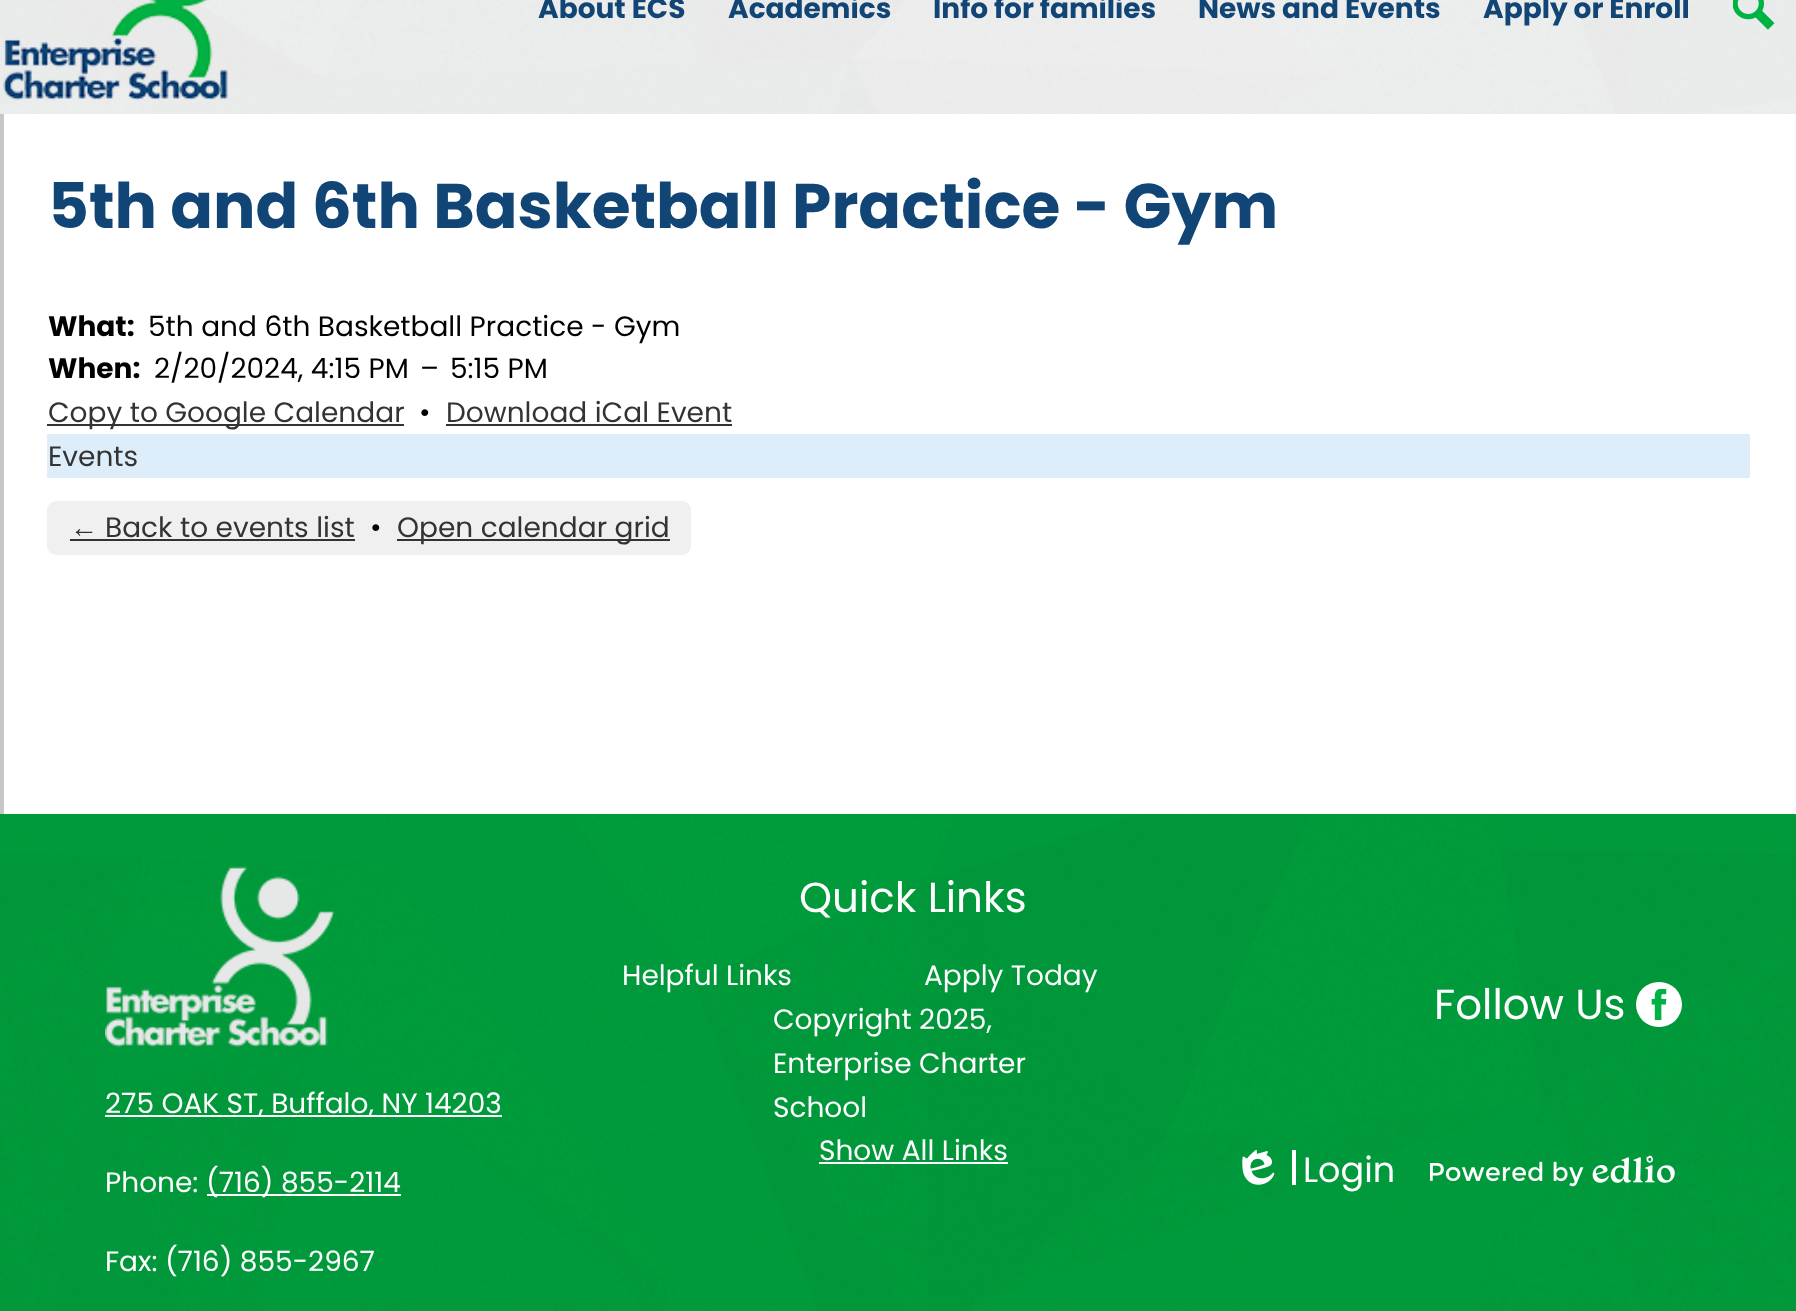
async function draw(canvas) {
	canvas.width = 1796;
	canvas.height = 1311;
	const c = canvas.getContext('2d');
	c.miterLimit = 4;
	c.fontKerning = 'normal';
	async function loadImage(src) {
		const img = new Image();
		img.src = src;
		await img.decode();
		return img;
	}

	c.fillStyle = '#c7c7c7';
	c.fillRect(0, 0, 1796, 1311);
	c.fillStyle = '#fff';
	c.fillRect(0, 0, 1796, 114);
	c.drawImage(await loadImage('img1.png'), 0, 0, 1796, 114);
	c.drawImage(await loadImage('img2.png'), 3, 0, 225, 100);
	c.font = 'bold 28px Poppins';
	c.fillStyle = '#114575';
	for (const [text, x, y] of [
		['About ECS', 538, 18],
		['Academics', 728, 18],
		['Info for families', 933, 18],
		['News and Events', 1198, 18],
		['Apply or Enroll', 1483, 18],
	]) {
		c.fillText(text, x, y);
	}
	c.drawImage(await loadImage('img3.png'), 1733, 0, 42, 30);
	c.fillStyle = '#fff';
	c.fillRect(4, 114, 1792, 700);
	c.font = 'bold 63px Poppins';
	c.fillStyle = '#114575';
	c.fillText('5th and 6th Basketball Practice - Gym', 48, 228);
	c.font = 'bold 28px Poppins';
	c.fillStyle = '#000';
	c.fillText('What:', 48, 336);
	c.font = '28px Poppins';
	c.fillText('5th and 6th Basketball Practice - Gym', 148, 336);
	c.font = 'bold 28px Poppins';
	c.fillText('When:', 48, 378);
	c.font = '28px Poppins';
	for (const [text, x, y] of [
		['2/20/2024, 4:15 PM', 154, 378],
		['–', 420, 378],
		['5:15 PM', 450, 378],
	]) {
		c.fillText(text, x, y);
	}
	c.fillStyle = '#333';
	c.fillRect(47, 424, 357, 2);
	c.fillText('Copy to Google Calendar', 48, 422);
	c.fillStyle = '#000';
	c.fillText('•', 419, 422);
	c.fillStyle = '#333';
	c.fillText('Download iCal Event', 446, 422);
	c.fillRect(446, 424, 286, 2);
	c.fillStyle = '#ddeefa';
	c.fillRect(47, 434, 1703, 44);
	c.fillStyle = '#333';
	c.fillText('Events', 48, 466);
	c.fillStyle = '#f0f0f0';
	c.beginPath();
	c.roundRect(47, 501, 644, 54, 9);
	c.fill();
	c.font = '28px Liberation Sans';
	c.fillStyle = '#333';
	c.fillText('←', 70, 537);
	c.fillRect(70, 539, 285, 2);
	c.font = '28px Poppins';
	c.fillText('Back to events list', 105, 537);
	c.fillStyle = '#000';
	c.fillText('•', 370, 537);
	c.fillStyle = '#333';
	c.fillRect(397, 539, 273, 2);
	c.fillText('Open calendar grid', 397, 537);
	c.drawImage(await loadImage('img4.png'), 0, 814, 1796, 497);
	c.drawImage(await loadImage('img5.png'), 105, 866, 230, 181);
	c.fillStyle = '#fff';
	c.fillRect(105, 1115, 397, 2);
	c.fillText('275 OAK ST, Buffalo, NY 14203', 105, 1113);
	c.fillText('Phone:', 105, 1192);
	c.fillRect(207, 1194, 194, 2);
	c.fillText('(716) 855-2114', 206, 1192);
	c.fillText('Fax: (716) 855-2967', 105, 1271);
	c.font = '42px Poppins';
	c.fillText('Quick Links', 799, 912);
	c.font = '28px Poppins';
	for (const [text, x, y] of [
		['Helpful Links', 622, 985],
		['Apply Today', 924, 985],
		['Copyright 2025,', 773, 1029],
		['Enterprise Charter', 773, 1073],
		['School', 773, 1117],
		['Show All Links', 819, 1160],
	]) {
		c.fillText(text, x, y);
	}
	c.fillRect(819, 1162, 189, 2);
	c.font = '42px Poppins';
	c.fillText('Follow Us', 1434, 1019);
	c.beginPath();
	c.roundRect(1636, 982, 46, 45, 22.5);
	c.fill();
	c.drawImage(await loadImage('img6.png'), 1651, 989, 16, 31);
	c.fillRect(1292, 1150, 4, 35);
	c.drawImage(await loadImage('img7.png'), 1242, 1150, 33, 35);
	c.font = '35px Poppins';
	c.fillText('Login', 1303, 1182);
	c.drawImage(await loadImage('img8.png'), 1430, 1155, 245, 32);
}

draw(document.querySelector('canvas'));
